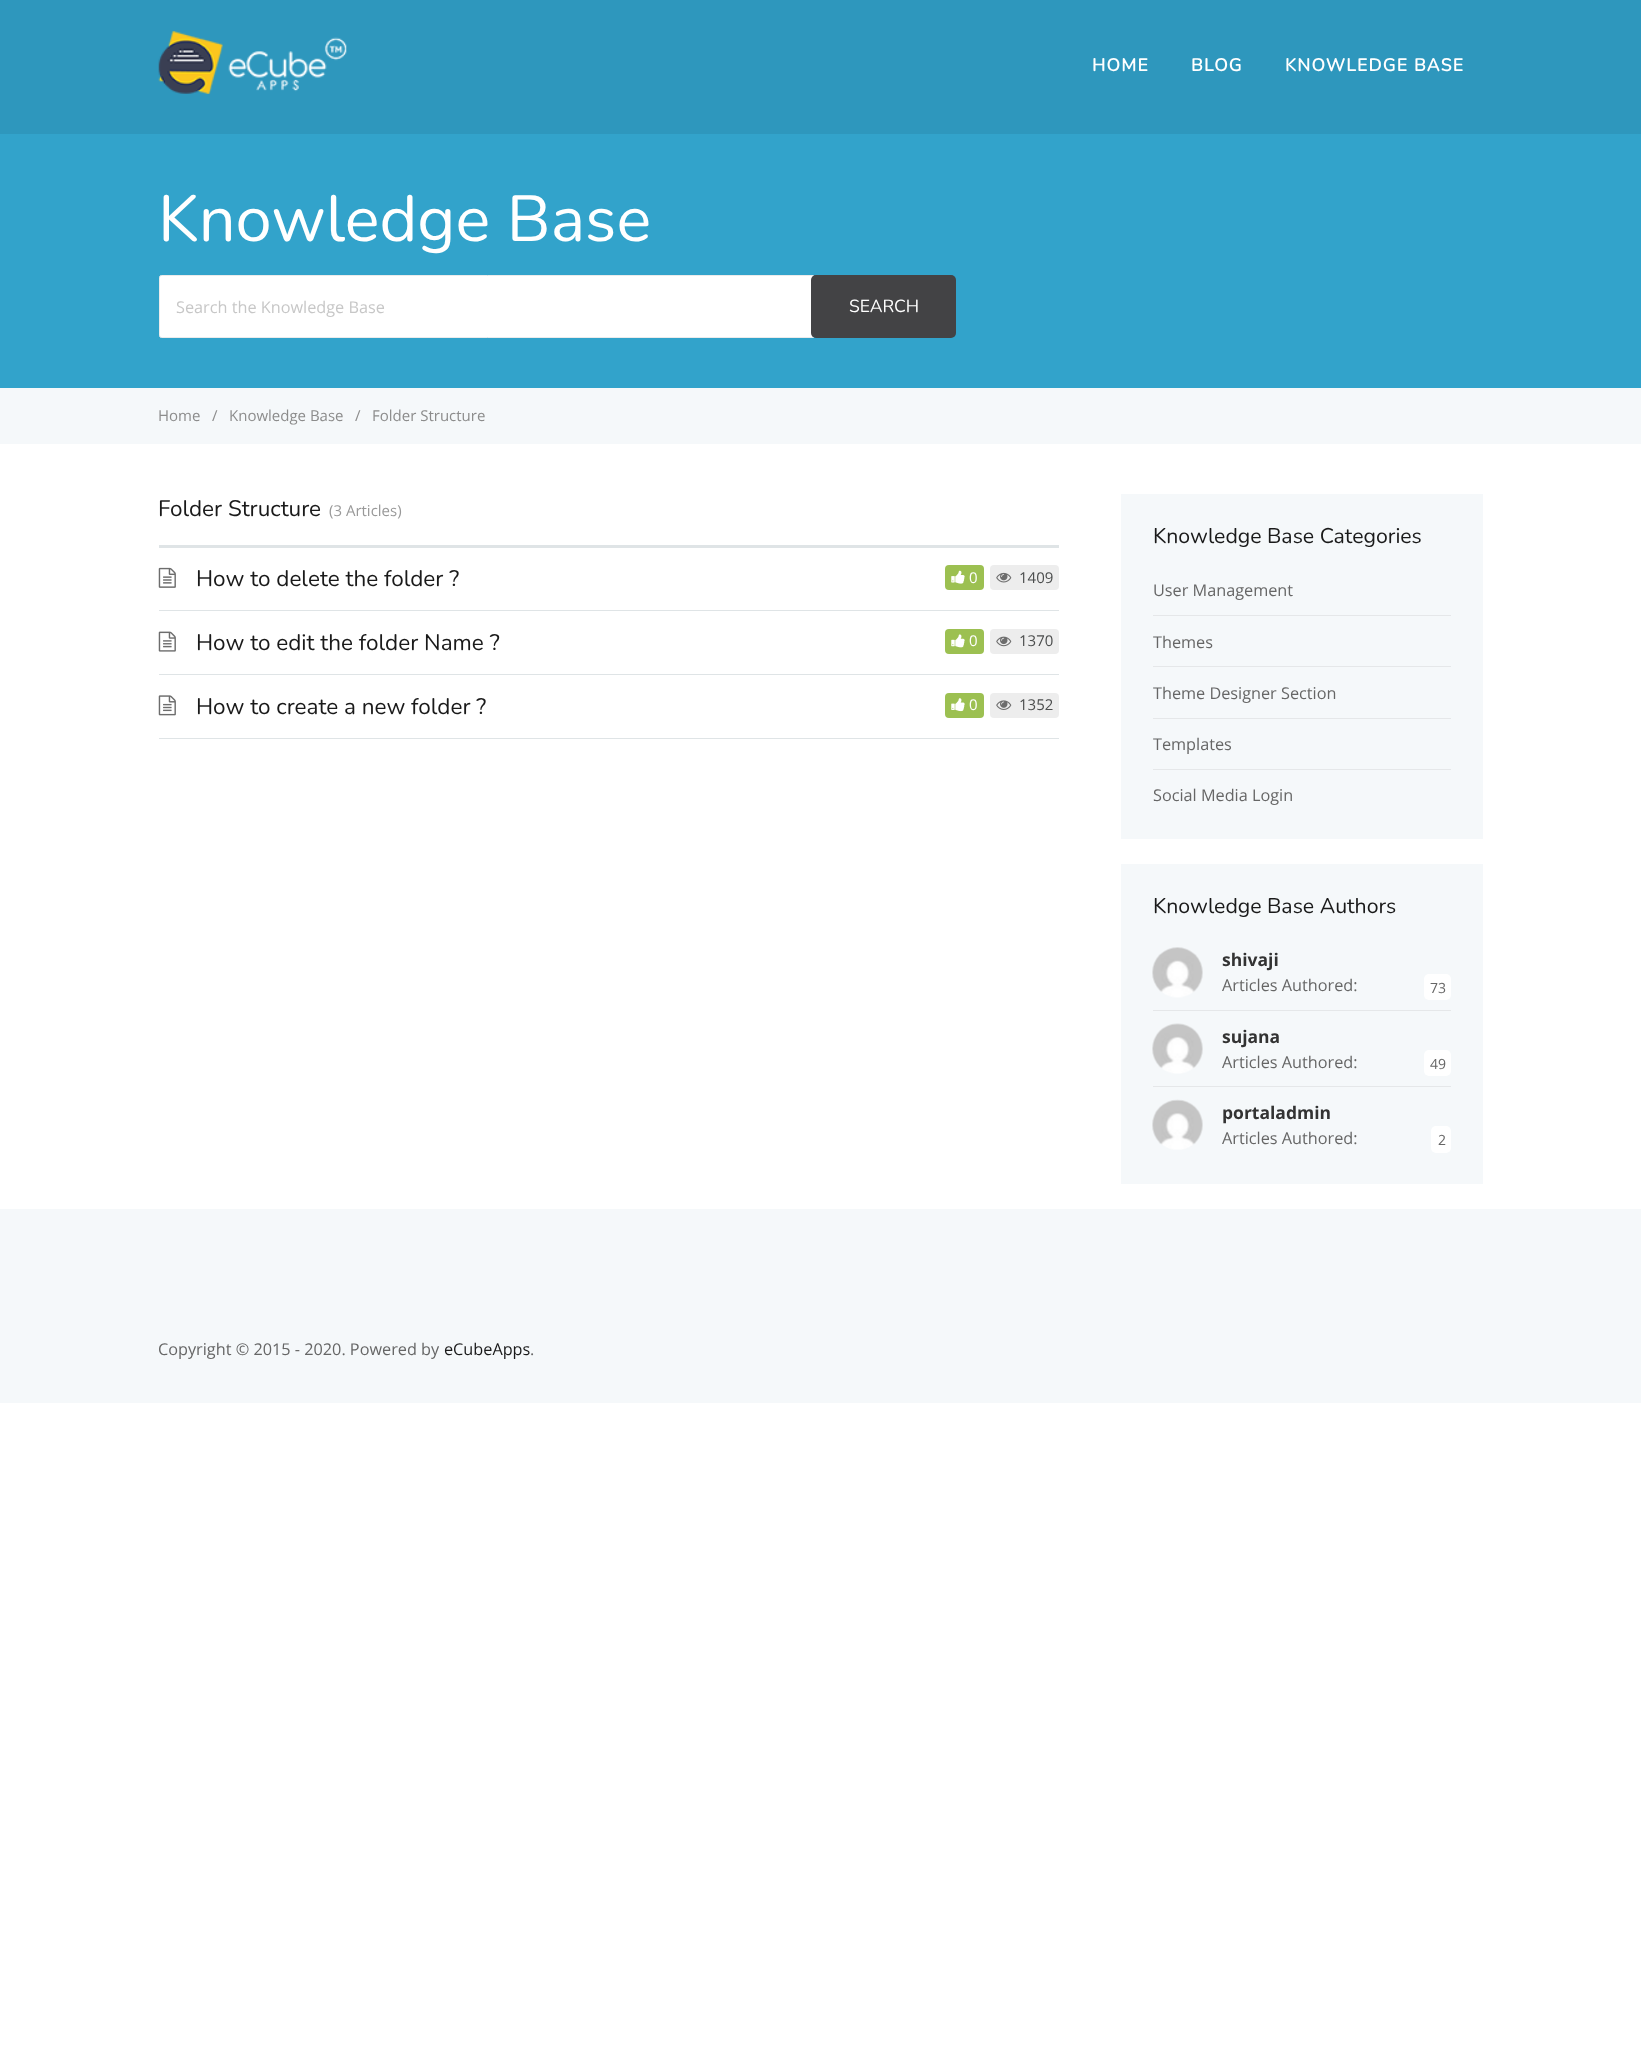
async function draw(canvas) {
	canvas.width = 1641;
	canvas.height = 2055;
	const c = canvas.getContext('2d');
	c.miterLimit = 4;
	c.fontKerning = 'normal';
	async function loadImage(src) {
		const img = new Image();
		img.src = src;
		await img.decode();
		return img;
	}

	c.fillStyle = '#fff';
	c.fillRect(0, 0, 1641, 2055);
	c.fillStyle = '#2e97bd';
	c.fillRect(0, 0, 1641, 134);
	c.drawImage(await loadImage('img1.png'), 158, 31, 189, 63);
	c.letterSpacing = '1.25px';
	c.font = 'bold 17.5px Nunito';
	c.fillStyle = '#fff';
	for (const [text, x, y] of [
		['HOME', 1092, 71],
		['BLOG', 1191, 71],
		['KNOWLEDGE BASE', 1285, 71],
	]) {
		c.fillText(text, x, y);
	}
	c.fillStyle = '#32a3cb';
	c.fillRect(0, 134, 1641, 254);
	c.letterSpacing = '0px';
	c.font = '200 65px Nunito';
	c.fillStyle = '#fff';
	c.fillText('Knowledge Base', 158, 241);
	c.beginPath();
	c.roundRect(159.5, 275.5, 654, 62, [2, 0, 0, 2]);
	c.fill();
	c.strokeStyle = '#ebebeb';
	c.stroke();
	c.font = '16.25px Open Sans';
	c.fillStyle = '#c7c7c7';
	c.fillText('Search the Knowledge Base', 176, 313);
	c.fillStyle = '#434345';
	c.beginPath();
	c.roundRect(811, 275, 145, 63, 5);
	c.fill();
	c.font = '200 17.5px Nunito';
	c.fillStyle = '#fff';
	c.fillText('SEARCH', 849, 312);
	c.fillStyle = '#f5f8fa';
	c.fillRect(0, 388, 1641, 56);
	c.font = '15px Open Sans';
	c.fillStyle = '#8c8c8c';
	for (const [text, x, y] of [
		['Home', 158, 421],
		['/', 212, 421],
		['Knowledge Base', 229, 421],
		['/', 355, 421],
		['Folder Structure', 372, 421],
	]) {
		c.fillText(text, x, y);
	}
	c.fillStyle = '#dfe4e6';
	c.fillRect(159, 545, 900, 3);
	c.font = '200 22.5px Nunito';
	c.fillStyle = '#1a1a1a';
	c.fillText('Folder Structure', 158, 516);
	c.font = '15px Open Sans';
	c.fillStyle = '#999';
	c.fillText('(3 Articles)', 329, 516);
	c.fillStyle = '#dfe4e6';
	c.fillRect(159, 610, 900, 1);
	c.drawImage(await loadImage('img2.png'), 158, 567, 18, 21);
	c.font = '200 22.5px Nunito';
	c.fillStyle = '#1a1a1a';
	c.fillText('How to delete the folder ?', 196, 586);
	c.fillStyle = '#9cc051';
	c.beginPath();
	c.roundRect(945, 565, 39, 25, 4);
	c.fill();
	c.drawImage(await loadImage('img3.png'), 951, 570, 14, 14);
	c.font = '15px Open Sans';
	c.fillStyle = '#fff';
	c.fillText('0', 969, 583);
	c.fillStyle = '#ededed';
	c.beginPath();
	c.roundRect(990, 565, 69, 25, 4);
	c.fill();
	c.drawImage(await loadImage('img4.png'), 996, 572, 16, 11);
	c.fillStyle = '#4b4d4d';
	c.fillText('1409', 1019, 583);
	c.fillStyle = '#dfe4e6';
	c.fillRect(159, 674, 900, 1);
	c.drawImage(await loadImage('img5.png'), 158, 631, 18, 21);
	c.font = '200 22.5px Nunito';
	c.fillStyle = '#1a1a1a';
	c.fillText('How to edit the folder Name ?', 196, 650);
	c.fillStyle = '#9cc051';
	c.beginPath();
	c.roundRect(945, 629, 39, 25, 4);
	c.fill();
	c.drawImage(await loadImage('img6.png'), 951, 634, 14, 14);
	c.font = '15px Open Sans';
	c.fillStyle = '#fff';
	c.fillText('0', 969, 646);
	c.fillStyle = '#ededed';
	c.beginPath();
	c.roundRect(990, 629, 69, 25, 4);
	c.fill();
	c.drawImage(await loadImage('img7.png'), 996, 636, 16, 11);
	c.fillStyle = '#4b4d4d';
	c.fillText('1370', 1019, 646);
	c.fillStyle = '#dfe4e6';
	c.fillRect(159, 738, 900, 1);
	c.drawImage(await loadImage('img8.png'), 158, 695, 18, 21);
	c.font = '200 22.5px Nunito';
	c.fillStyle = '#1a1a1a';
	c.fillText('How to create a new folder ?', 196, 714);
	c.fillStyle = '#9cc051';
	c.beginPath();
	c.roundRect(945, 693, 39, 25, 4);
	c.fill();
	c.drawImage(await loadImage('img9.png'), 951, 698, 14, 14);
	c.font = '15px Open Sans';
	c.fillStyle = '#fff';
	c.fillText('0', 969, 710);
	c.fillStyle = '#ededed';
	c.beginPath();
	c.roundRect(990, 693, 69, 25, 4);
	c.fill();
	c.drawImage(await loadImage('img10.png'), 996, 700, 16, 10);
	c.fillStyle = '#4b4d4d';
	c.fillText('1352', 1019, 710);
	c.fillStyle = '#f5f8fa';
	c.fillRect(1121, 494, 362, 345);
	c.font = '200 21.25px Nunito';
	c.fillStyle = '#1a1a1a';
	c.fillText('Knowledge Base Categories', 1153, 543);
	c.fillStyle = '#e5e7e9';
	c.fillRect(1153, 615, 298, 1);
	c.font = '16.25px Open Sans';
	c.fillStyle = '#666';
	c.fillText('User Management', 1153, 596);
	c.fillStyle = '#e5e7e9';
	c.fillRect(1153, 666, 298, 1);
	c.fillStyle = '#666';
	c.fillText('Themes', 1153, 648);
	c.fillStyle = '#e5e7e9';
	c.fillRect(1153, 718, 298, 1);
	c.fillStyle = '#666';
	c.fillText('Theme Designer Section', 1153, 699);
	c.fillStyle = '#e5e7e9';
	c.fillRect(1153, 769, 298, 1);
	c.fillStyle = '#666';
	c.fillText('Templates', 1153, 750);
	c.fillText('Social Media Login', 1153, 801);
	c.fillStyle = '#f5f8fa';
	c.fillRect(1121, 864, 362, 320);
	c.font = '200 21.25px Nunito';
	c.fillStyle = '#1a1a1a';
	c.fillText('Knowledge Base Authors', 1153, 913);
	c.fillStyle = '#e5e7e9';
	c.fillRect(1153, 1010, 298, 1);
	c.drawImage(await loadImage('img11.png'), 1152, 947, 51, 51);
	c.font = 'bold 17.5px Open Sans';
	c.fillStyle = '#333';
	c.fillText('shivaji', 1222, 966);
	c.font = '16.25px Open Sans';
	c.fillStyle = '#666';
	c.fillText('Articles Authored:', 1222, 991);
	c.fillStyle = '#fff';
	c.beginPath();
	c.roundRect(1424, 974, 27, 26, 5);
	c.fill();
	c.font = '14px Open Sans';
	c.fillStyle = '#666';
	c.fillText('73', 1430, 993);
	c.fillStyle = '#e5e7e9';
	c.fillRect(1153, 1086, 298, 1);
	c.drawImage(await loadImage('img12.png'), 1152, 1023, 51, 51);
	c.font = 'bold 17.5px Open Sans';
	c.fillStyle = '#333';
	c.fillText('sujana', 1222, 1043);
	c.font = '16.25px Open Sans';
	c.fillStyle = '#666';
	c.fillText('Articles Authored:', 1222, 1068);
	c.fillStyle = '#fff';
	c.beginPath();
	c.roundRect(1424, 1050, 27, 26, 5);
	c.fill();
	c.font = '14px Open Sans';
	c.fillStyle = '#666';
	c.fillText('49', 1430, 1069);
	c.drawImage(await loadImage('img13.png'), 1152, 1099, 51, 51);
	c.font = 'bold 17.5px Open Sans';
	c.fillStyle = '#333';
	c.fillText('portaladmin', 1222, 1119);
	c.font = '16.25px Open Sans';
	c.fillStyle = '#666';
	c.fillText('Articles Authored:', 1222, 1144);
	c.fillStyle = '#fff';
	c.beginPath();
	c.roundRect(1431, 1126, 20, 27, 5);
	c.fill();
	c.font = '14px Open Sans';
	c.fillStyle = '#666';
	c.fillText('2', 1438, 1145);
	c.fillStyle = '#f5f8fa';
	c.fillRect(0, 1209, 1641, 194);
	c.font = '16.25px Open Sans';
	c.fillStyle = '#666';
	c.fillText('Copyright © 2015 - 2020. Powered by', 158, 1355);
	c.fillStyle = '#1a1a1a';
	c.fillText('eCubeApps', 444, 1355);
	c.fillStyle = '#666';
	c.fillText('.', 530, 1355);
}

draw(document.querySelector('canvas'));
